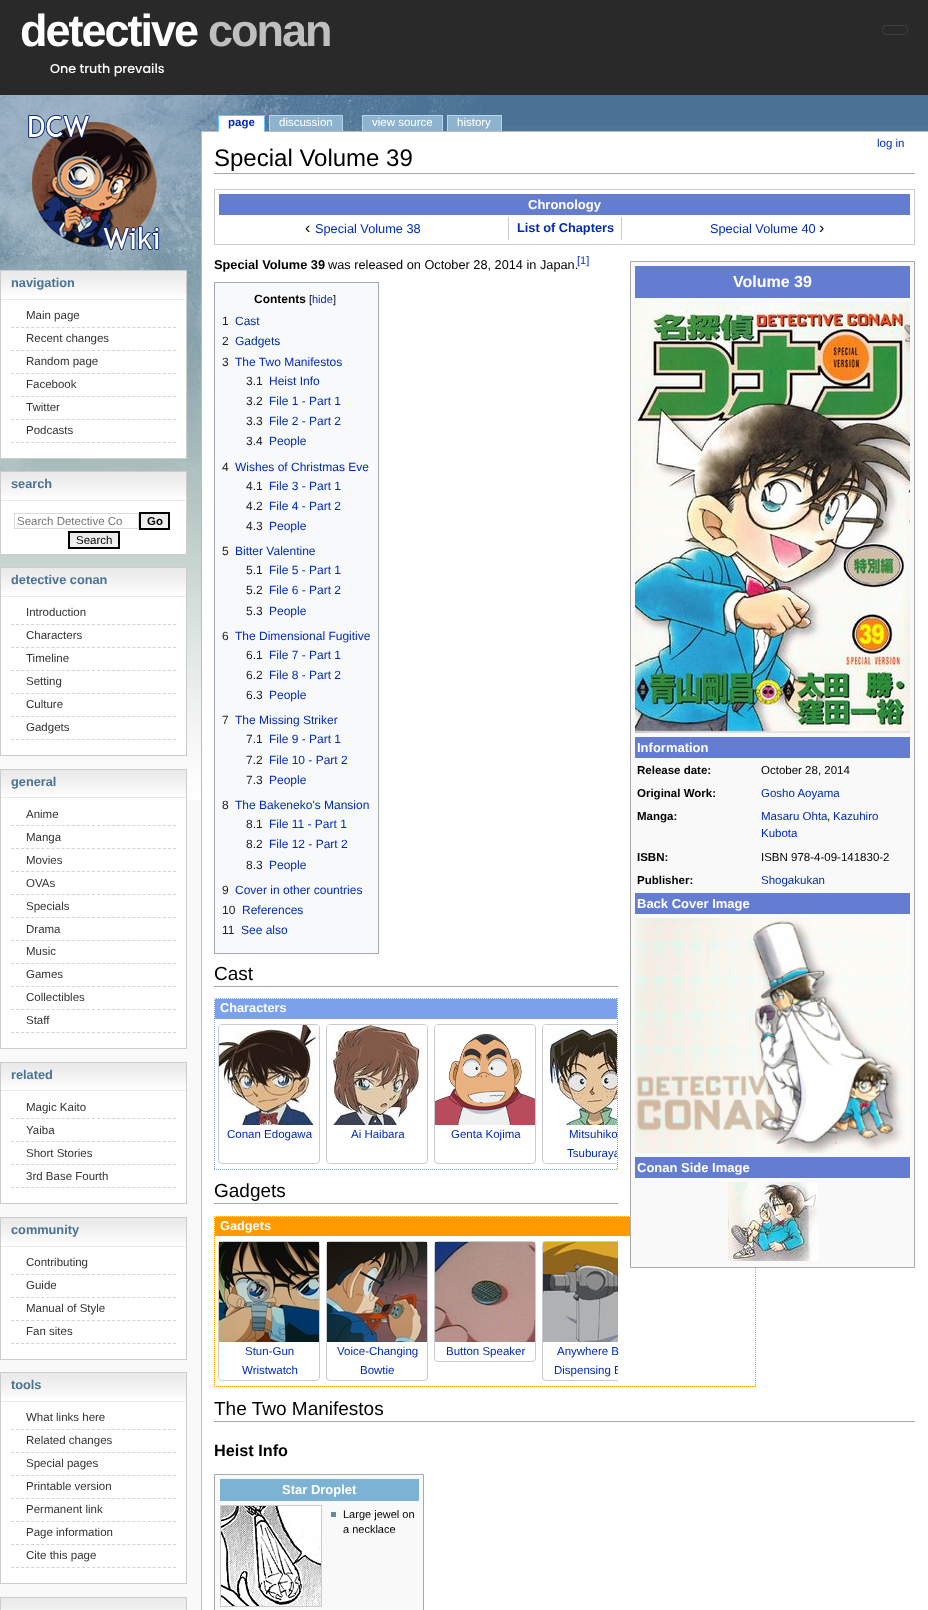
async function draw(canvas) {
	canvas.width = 928;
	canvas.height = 1610;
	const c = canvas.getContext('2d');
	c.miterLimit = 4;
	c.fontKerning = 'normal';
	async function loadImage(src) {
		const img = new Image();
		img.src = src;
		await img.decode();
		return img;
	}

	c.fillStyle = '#f9f9f9';
	c.fillRect(0, 0, 928, 1610);
	c.fillStyle = '#292929';
	c.fillRect(0, 0, 928, 95);
	c.letterSpacing = '-2px';
	c.font = 'bold 45px Liberation Sans';
	c.fillStyle = '#fff';
	c.fillText('detective', 20, 46);
	c.fillStyle = '#bfbfbf';
	c.fillText('conan', 208, 46);
	c.letterSpacing = '0px';
	c.font = '500 12.75px Poppins';
	c.fillStyle = '#fff';
	c.fillText('One truth prevails', 50, 73);
	c.beginPath();
	c.roundRect(882.5, 25.5, 25, 9, 3.5);
	c.strokeStyle = '#3e3e3e';
	c.stroke();
	c.fillStyle = '#4a7294';
	c.fillRect(0, 95, 928, 698);
	c.drawImage(await loadImage('img18.png'), 0, 126, 928, 674);
	c.drawImage(await loadImage('img19.png'), 0, 95, 481, 403);
	c.drawImage(await loadImage('img1.png'), 28, 115, 132, 135);
	c.strokeStyle = '#5fc6ff';
	c.strokeRect(218.5, 115.5, 46, 25);
	c.strokeStyle = '#b3d5ef';
	c.strokeRect(269.5, 115.5, 73, 25);
	c.strokeRect(362.5, 115.5, 80, 25);
	c.strokeRect(447.5, 115.5, 54, 25);
	c.fillStyle = '#bbb';
	c.fillRect(201, 131, 727, 1);
	c.fillStyle = '#fff';
	c.fillRect(219, 116, 45, 16);
	c.font = 'bold 11.5px Liberation Sans';
	c.fillStyle = '#002bb8';
	c.fillText('page', 228, 126);
	c.fillStyle = '#8eb3cf';
	c.fillRect(270, 116, 72, 15);
	c.font = '11.5px Liberation Sans';
	c.fillStyle = '#fff';
	c.fillText('discussion', 279, 126);
	c.fillStyle = '#8eb3cf';
	c.fillRect(363, 116, 79, 15);
	c.fillStyle = '#fff';
	c.fillText('view source', 372, 126);
	c.fillStyle = '#8eb3cf';
	c.fillRect(448, 116, 53, 15);
	c.fillStyle = '#fff';
	c.fillText('history', 457, 126);
	c.fillRect(202, 132, 726, 1478);
	c.fillStyle = '#002bb8';
	c.fillText('log in', 877, 147);
	c.fillStyle = '#fff';
	c.fillRect(1, 295, 185, 163);
	c.drawImage(await loadImage('img2.png'), 1, 271, 185, 24);
	c.strokeStyle = '#ccc';
	c.strokeRect(0.5, 270.5, 186, 188);
	c.fillStyle = '#eaeaea';
	c.fillRect(1, 299, 185, 1);
	c.font = 'bold 12.75px Liberation Sans';
	c.fillStyle = '#4a7294';
	c.fillText('navigation', 11, 287);
	c.beginPath();
	c.moveTo(11, 327.5);
	c.lineTo(176, 327.5);
	c.strokeStyle = '#d4d4d4';
	c.setLineDash([3, 2.06]);
	c.stroke();
	c.font = '11.5px Liberation Sans';
	c.fillStyle = '#333';
	c.fillText('Main page', 26, 319);
	c.beginPath();
	c.moveTo(11, 350.5);
	c.lineTo(176, 350.5);
	c.stroke();
	c.fillText('Recent changes', 26, 342);
	c.beginPath();
	c.moveTo(11, 373.5);
	c.lineTo(176, 373.5);
	c.stroke();
	c.fillText('Random page', 26, 365);
	c.beginPath();
	c.moveTo(11, 396.5);
	c.lineTo(176, 396.5);
	c.stroke();
	c.fillText('Facebook', 26, 388);
	c.beginPath();
	c.moveTo(11, 419.5);
	c.lineTo(176, 419.5);
	c.stroke();
	c.fillText('Twitter', 26, 411);
	c.beginPath();
	c.moveTo(11, 442.5);
	c.lineTo(176, 442.5);
	c.stroke();
	c.fillText('Podcasts', 26, 434);
	c.fillStyle = '#fff';
	c.fillRect(1, 496, 185, 58);
	c.drawImage(await loadImage('img2.png'), 1, 472, 185, 24);
	c.strokeStyle = '#ccc';
	c.setLineDash([]);
	c.strokeRect(0.5, 471.5, 186, 83);
	c.fillStyle = '#eaeaea';
	c.fillRect(1, 500, 185, 1);
	c.font = 'bold 12.75px Liberation Sans';
	c.fillStyle = '#4a7294';
	c.fillText('search', 11, 488);
	c.strokeStyle = '#dadada';
	c.strokeRect(14.5, 513.5, 124, 15);
	c.font = '11.5px Liberation Sans';
	c.fillStyle = '#757575';
	c.fillText('Search Detective Co', 17, 525);
	c.drawImage(await loadImage('img3.png'), 141, 514, 27, 14);
	c.strokeStyle = '#000';
	c.lineWidth = 2;
	c.strokeRect(140, 513, 29, 16);
	c.font = 'bold 11.5px Liberation Sans';
	c.fillStyle = '#000';
	c.fillText('Go', 147, 525);
	c.drawImage(await loadImage('img4.png'), 70, 533, 48, 14);
	c.strokeRect(69, 532, 50, 16);
	c.font = '11.5px Liberation Sans';
	c.fillText('Search', 76, 544);
	c.fillStyle = '#fff';
	c.fillRect(1, 592, 185, 163);
	c.drawImage(await loadImage('img2.png'), 1, 568, 185, 24);
	c.strokeStyle = '#ccc';
	c.lineWidth = 1;
	c.strokeRect(0.5, 567.5, 186, 188);
	c.fillStyle = '#eaeaea';
	c.fillRect(1, 596, 185, 1);
	c.font = 'bold 12.75px Liberation Sans';
	c.fillStyle = '#4a7294';
	c.fillText('detective conan', 11, 584);
	c.beginPath();
	c.moveTo(11, 624.5);
	c.lineTo(176, 624.5);
	c.strokeStyle = '#d4d4d4';
	c.setLineDash([3, 2.06]);
	c.stroke();
	c.font = '11.5px Liberation Sans';
	c.fillStyle = '#333';
	c.fillText('Introduction', 26, 616);
	c.beginPath();
	c.moveTo(11, 647.5);
	c.lineTo(176, 647.5);
	c.stroke();
	c.fillText('Characters', 26, 639);
	c.beginPath();
	c.moveTo(11, 670.5);
	c.lineTo(176, 670.5);
	c.stroke();
	c.fillText('Timeline', 26, 662);
	c.beginPath();
	c.moveTo(11, 693.5);
	c.lineTo(176, 693.5);
	c.stroke();
	c.fillText('Setting', 26, 685);
	c.beginPath();
	c.moveTo(11, 716.5);
	c.lineTo(176, 716.5);
	c.stroke();
	c.fillText('Culture', 26, 708);
	c.beginPath();
	c.moveTo(11, 739.5);
	c.lineTo(176, 739.5);
	c.stroke();
	c.fillText('Gadgets', 26, 731);
	c.fillStyle = '#fff';
	c.fillRect(1, 800, 185, 248);
	c.drawImage(await loadImage('img2.png'), 1, 770, 185, 24);
	c.strokeStyle = '#ccc';
	c.setLineDash([]);
	c.strokeRect(0.5, 769.5, 186, 279);
	c.fillStyle = '#eaeaea';
	c.fillRect(1, 797, 185, 1);
	c.font = 'bold 12.75px Liberation Sans';
	c.fillStyle = '#4a7294';
	c.fillText('general', 11, 786);
	c.beginPath();
	c.moveTo(11, 825.5);
	c.lineTo(176, 825.5);
	c.strokeStyle = '#d4d4d4';
	c.setLineDash([3, 2.06]);
	c.stroke();
	c.font = '11.5px Liberation Sans';
	c.fillStyle = '#333';
	c.fillText('Anime', 26, 818);
	c.beginPath();
	c.moveTo(11, 848.5);
	c.lineTo(176, 848.5);
	c.stroke();
	c.fillText('Manga', 26, 841);
	c.beginPath();
	c.moveTo(11, 871.5);
	c.lineTo(176, 871.5);
	c.stroke();
	c.fillText('Movies', 26, 864);
	c.beginPath();
	c.moveTo(11, 894.5);
	c.lineTo(176, 894.5);
	c.stroke();
	c.fillText('OVAs', 26, 887);
	c.beginPath();
	c.moveTo(11, 917.5);
	c.lineTo(176, 917.5);
	c.stroke();
	c.fillText('Specials', 26, 910);
	c.beginPath();
	c.moveTo(11, 940.5);
	c.lineTo(176, 940.5);
	c.stroke();
	c.fillText('Drama', 26, 933);
	c.beginPath();
	c.moveTo(11, 963.5);
	c.lineTo(176, 963.5);
	c.stroke();
	c.fillText('Music', 26, 955);
	c.beginPath();
	c.moveTo(11, 986.5);
	c.lineTo(176, 986.5);
	c.stroke();
	c.fillText('Games', 26, 978);
	c.beginPath();
	c.moveTo(11, 1009.5);
	c.lineTo(176, 1009.5);
	c.stroke();
	c.fillText('Collectibles', 26, 1001);
	c.beginPath();
	c.moveTo(11, 1032.5);
	c.lineTo(176, 1032.5);
	c.stroke();
	c.fillText('Staff', 26, 1024);
	c.fillStyle = '#fff';
	c.fillRect(1, 1087, 185, 116);
	c.drawImage(await loadImage('img2.png'), 1, 1063, 185, 24);
	c.strokeStyle = '#ccc';
	c.setLineDash([]);
	c.strokeRect(0.5, 1062.5, 186, 141);
	c.fillStyle = '#eaeaea';
	c.fillRect(1, 1090, 185, 1);
	c.font = 'bold 12.75px Liberation Sans';
	c.fillStyle = '#4a7294';
	c.fillText('related', 11, 1079);
	c.beginPath();
	c.moveTo(11, 1118.5);
	c.lineTo(176, 1118.5);
	c.strokeStyle = '#d4d4d4';
	c.setLineDash([3, 2.06]);
	c.stroke();
	c.font = '11.5px Liberation Sans';
	c.fillStyle = '#333';
	c.fillText('Magic Kaito', 26, 1111);
	c.beginPath();
	c.moveTo(11, 1141.5);
	c.lineTo(176, 1141.5);
	c.stroke();
	c.fillText('Yaiba', 26, 1134);
	c.beginPath();
	c.moveTo(11, 1164.5);
	c.lineTo(176, 1164.5);
	c.stroke();
	c.fillText('Short Stories', 26, 1157);
	c.beginPath();
	c.moveTo(11, 1187.5);
	c.lineTo(176, 1187.5);
	c.stroke();
	c.fillText('3rd Base Fourth', 26, 1180);
	c.fillStyle = '#fff';
	c.fillRect(1, 1242, 185, 117);
	c.drawImage(await loadImage('img2.png'), 1, 1218, 185, 24);
	c.strokeStyle = '#ccc';
	c.setLineDash([]);
	c.strokeRect(0.5, 1217.5, 186, 142);
	c.fillStyle = '#eaeaea';
	c.fillRect(1, 1246, 185, 1);
	c.font = 'bold 12.75px Liberation Sans';
	c.fillStyle = '#4a7294';
	c.fillText('community', 11, 1234);
	c.beginPath();
	c.moveTo(11, 1274.5);
	c.lineTo(176, 1274.5);
	c.strokeStyle = '#d4d4d4';
	c.setLineDash([3, 2.06]);
	c.stroke();
	c.font = '11.5px Liberation Sans';
	c.fillStyle = '#333';
	c.fillText('Contributing', 26, 1266);
	c.beginPath();
	c.moveTo(11, 1297.5);
	c.lineTo(176, 1297.5);
	c.stroke();
	c.fillText('Guide', 26, 1289);
	c.beginPath();
	c.moveTo(11, 1320.5);
	c.lineTo(176, 1320.5);
	c.stroke();
	c.fillText('Manual of Style', 26, 1312);
	c.beginPath();
	c.moveTo(11, 1343.5);
	c.lineTo(176, 1343.5);
	c.stroke();
	c.fillText('Fan sites', 26, 1335);
	c.fillStyle = '#fff';
	c.fillRect(1, 1397, 185, 186);
	c.drawImage(await loadImage('img2.png'), 1, 1373, 185, 24);
	c.strokeStyle = '#ccc';
	c.setLineDash([]);
	c.strokeRect(0.5, 1372.5, 186, 211);
	c.fillStyle = '#eaeaea';
	c.fillRect(1, 1401, 185, 1);
	c.font = 'bold 12.75px Liberation Sans';
	c.fillStyle = '#4a7294';
	c.fillText('tools', 11, 1389);
	c.beginPath();
	c.moveTo(11, 1429.5);
	c.lineTo(176, 1429.5);
	c.strokeStyle = '#d4d4d4';
	c.setLineDash([3, 2.06]);
	c.stroke();
	c.font = '11.5px Liberation Sans';
	c.fillStyle = '#333';
	c.fillText('What links here', 26, 1421);
	c.beginPath();
	c.moveTo(11, 1452.5);
	c.lineTo(176, 1452.5);
	c.stroke();
	c.fillText('Related changes', 26, 1444);
	c.beginPath();
	c.moveTo(11, 1475.5);
	c.lineTo(176, 1475.5);
	c.stroke();
	c.fillText('Special pages', 26, 1467);
	c.beginPath();
	c.moveTo(11, 1498.5);
	c.lineTo(176, 1498.5);
	c.stroke();
	c.fillText('Printable version', 26, 1490);
	c.beginPath();
	c.moveTo(11, 1521.5);
	c.lineTo(176, 1521.5);
	c.stroke();
	c.fillText('Permanent link', 26, 1513);
	c.beginPath();
	c.moveTo(11, 1544.5);
	c.lineTo(176, 1544.5);
	c.stroke();
	c.fillText('Page information', 26, 1536);
	c.beginPath();
	c.moveTo(11, 1567.5);
	c.lineTo(176, 1567.5);
	c.stroke();
	c.fillText('Cite this page', 26, 1559);
	c.drawImage(await loadImage('img5.png'), 1, 1598, 185, 12);
	c.strokeStyle = '#ccc';
	c.setLineDash([]);
	c.strokeRect(0.5, 1597.5, 186, 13);
	c.fillStyle = '#bbb';
	c.fillRect(201, 131, 1, 1479);
	c.fillStyle = '#a2a9b1';
	c.fillRect(214, 173, 701, 1);
	c.font = '24px Liberation Sans';
	c.fillStyle = '#000';
	c.fillText('Special Volume 39', 214, 166);
	c.strokeRect(214.5, 189.5, 700, 55);
	c.fillStyle = '#647dd1';
	c.fillRect(219, 194, 691, 21);
	c.font = 'bold 13px Liberation Sans';
	c.fillStyle = '#fff';
	c.fillText('Chronology', 528, 209);
	c.font = '16px Liberation Sans';
	c.fillStyle = '#000';
	c.fillText('‹', 305, 233);
	c.font = '12.75px Liberation Sans';
	c.fillStyle = '#002bb8';
	c.fillText('Special Volume 38', 315, 233);
	c.fillStyle = '#ccc';
	c.fillRect(621, 217, 1, 23);
	c.fillRect(508, 217, 1, 23);
	c.font = 'bold 12.75px Liberation Sans';
	c.fillStyle = '#002bb8';
	c.fillText('List of Chapters', 517, 232);
	c.font = '12.75px Liberation Sans';
	c.fillText('Special Volume 40', 710, 233);
	c.font = '16px Liberation Sans';
	c.fillStyle = '#000';
	c.fillText('›', 819, 233);
	c.font = 'bold 12.75px Liberation Sans';
	c.fillText('Special Volume 39', 214, 269);
	c.font = '12.75px Liberation Sans';
	c.fillText('was released on October 28, 2014 in Japan.', 328, 269);
	c.font = '11px Liberation Sans';
	c.fillStyle = '#002bb8';
	c.fillText('[1]', 577, 264);
	c.fillStyle = '#f8f9fa';
	c.beginPath();
	c.rect(214.5, 282.5, 164, 671);
	c.fill();
	c.strokeStyle = '#a2a9b1';
	c.stroke();
	c.font = 'bold 12px Liberation Sans';
	c.fillStyle = '#000';
	c.fillText('Contents', 254, 303);
	c.font = '11px Liberation Sans';
	c.fillText('[', 309, 303);
	c.fillStyle = '#002bb8';
	c.fillText('hide', 312, 303);
	c.fillStyle = '#000';
	c.fillText(']', 333, 303);
	c.font = '12px Liberation Sans';
	c.fillStyle = '#222';
	c.fillText('1', 222, 325);
	c.fillStyle = '#002bb8';
	c.fillText('Cast', 235, 325);
	c.fillStyle = '#222';
	c.fillText('2', 222, 345);
	c.fillStyle = '#002bb8';
	c.fillText('Gadgets', 235, 345);
	c.fillStyle = '#222';
	c.fillText('3', 222, 366);
	c.fillStyle = '#002bb8';
	c.fillText('The Two Manifestos', 235, 366);
	c.fillStyle = '#222';
	c.fillText('3.1', 246, 385);
	c.fillStyle = '#002bb8';
	c.fillText('Heist Info', 269, 385);
	c.fillStyle = '#222';
	c.fillText('3.2', 246, 405);
	c.fillStyle = '#002bb8';
	c.fillText('File 1 - Part 1', 269, 405);
	c.fillStyle = '#222';
	c.fillText('3.3', 246, 425);
	c.fillStyle = '#002bb8';
	c.fillText('File 2 - Part 2', 269, 425);
	c.fillStyle = '#222';
	c.fillText('3.4', 246, 445);
	c.fillStyle = '#002bb8';
	c.fillText('People', 269, 445);
	c.fillStyle = '#222';
	c.fillText('4', 222, 471);
	c.fillStyle = '#002bb8';
	c.fillText('Wishes of Christmas Eve', 235, 471);
	c.fillStyle = '#222';
	c.fillText('4.1', 246, 490);
	c.fillStyle = '#002bb8';
	c.fillText('File 3 - Part 1', 269, 490);
	c.fillStyle = '#222';
	c.fillText('4.2', 246, 510);
	c.fillStyle = '#002bb8';
	c.fillText('File 4 - Part 2', 269, 510);
	c.fillStyle = '#222';
	c.fillText('4.3', 246, 530);
	c.fillStyle = '#002bb8';
	c.fillText('People', 269, 530);
	c.fillStyle = '#222';
	c.fillText('5', 222, 555);
	c.fillStyle = '#002bb8';
	c.fillText('Bitter Valentine', 235, 555);
	c.fillStyle = '#222';
	c.fillText('5.1', 246, 574);
	c.fillStyle = '#002bb8';
	c.fillText('File 5 - Part 1', 269, 574);
	c.fillStyle = '#222';
	c.fillText('5.2', 246, 594);
	c.fillStyle = '#002bb8';
	c.fillText('File 6 - Part 2', 269, 594);
	c.fillStyle = '#222';
	c.fillText('5.3', 246, 615);
	c.fillStyle = '#002bb8';
	c.fillText('People', 269, 615);
	c.fillStyle = '#222';
	c.fillText('6', 222, 640);
	c.fillStyle = '#002bb8';
	c.fillText('The Dimensional Fugitive', 235, 640);
	c.fillStyle = '#222';
	c.fillText('6.1', 246, 659);
	c.fillStyle = '#002bb8';
	c.fillText('File 7 - Part 1', 269, 659);
	c.fillStyle = '#222';
	c.fillText('6.2', 246, 679);
	c.fillStyle = '#002bb8';
	c.fillText('File 8 - Part 2', 269, 679);
	c.fillStyle = '#222';
	c.fillText('6.3', 246, 699);
	c.fillStyle = '#002bb8';
	c.fillText('People', 269, 699);
	c.fillStyle = '#222';
	c.fillText('7', 222, 724);
	c.fillStyle = '#002bb8';
	c.fillText('The Missing Striker', 235, 724);
	c.fillStyle = '#222';
	c.fillText('7.1', 246, 743);
	c.fillStyle = '#002bb8';
	c.fillText('File 9 - Part 1', 269, 743);
	c.fillStyle = '#222';
	c.fillText('7.2', 246, 764);
	c.fillStyle = '#002bb8';
	c.fillText('File 10 - Part 2', 269, 764);
	c.fillStyle = '#222';
	c.fillText('7.3', 246, 784);
	c.fillStyle = '#002bb8';
	c.fillText('People', 269, 784);
	c.fillStyle = '#222';
	c.fillText('8', 222, 809);
	c.fillStyle = '#002bb8';
	c.fillText('The Bakeneko\'s Mansion', 235, 809);
	c.fillStyle = '#222';
	c.fillText('8.1', 246, 828);
	c.fillStyle = '#002bb8';
	c.fillText('File 11 - Part 1', 269, 828);
	c.fillStyle = '#222';
	c.fillText('8.2', 246, 848);
	c.fillStyle = '#002bb8';
	c.fillText('File 12 - Part 2', 269, 848);
	c.fillStyle = '#222';
	c.fillText('8.3', 246, 869);
	c.fillStyle = '#002bb8';
	c.fillText('People', 269, 869);
	c.fillStyle = '#222';
	c.fillText('9', 222, 894);
	c.fillStyle = '#002bb8';
	c.fillText('Cover in other countries', 235, 894);
	c.fillStyle = '#222';
	c.fillText('10', 222, 914);
	c.fillStyle = '#002bb8';
	c.fillText('References', 242, 914);
	c.fillStyle = '#222';
	c.fillText('11', 222, 934);
	c.fillStyle = '#002bb8';
	c.fillText('See also', 241, 934);
	c.beginPath();
	c.moveTo(214, 1216.5);
	c.lineTo(756, 1216.5);
	c.strokeStyle = '#f90';
	c.setLineDash([1, 1]);
	c.stroke();
	c.beginPath();
	c.moveTo(755.5, 1216);
	c.lineTo(755.5, 1387);
	c.stroke();
	c.fillStyle = '#f9f9f9';
	c.beginPath();
	c.rect(630.5, 261.5, 284, 1006);
	c.fill();
	c.strokeStyle = '#aaa';
	c.setLineDash([]);
	c.stroke();
	c.fillStyle = '#647dd1';
	c.fillRect(635, 266, 275, 32);
	c.font = 'bold 16px Liberation Sans';
	c.fillStyle = '#fff';
	c.fillText('Volume 39', 733, 287);
	c.drawImage(await loadImage('img6.png'), 635, 302, 275, 431);
	c.fillStyle = '#647dd1';
	c.fillRect(635, 737, 275, 21);
	c.font = 'bold 13px Liberation Sans';
	c.fillStyle = '#fff';
	c.fillText('Information', 637, 752);
	c.font = 'bold 11.5px Liberation Sans';
	c.fillStyle = '#000';
	c.fillText('Release date:', 637, 774);
	c.font = '11.5px Liberation Sans';
	c.fillText('October 28, 2014', 761, 774);
	c.font = 'bold 11.5px Liberation Sans';
	c.fillText('Original Work:', 637, 797);
	c.font = '11.5px Liberation Sans';
	c.fillStyle = '#002bb8';
	c.fillText('Gosho Aoyama', 761, 797);
	c.font = 'bold 11.5px Liberation Sans';
	c.fillStyle = '#000';
	c.fillText('Manga:', 637, 820);
	c.font = '11.5px Liberation Sans';
	c.fillStyle = '#002bb8';
	c.fillText('Masaru Ohta', 761, 820);
	c.fillStyle = '#000';
	c.fillText(',', 827, 820);
	c.fillStyle = '#002bb8';
	c.fillText('Kazuhiro', 833, 820);
	c.fillText('Kubota', 761, 837);
	c.font = 'bold 11.5px Liberation Sans';
	c.fillStyle = '#000';
	c.fillText('ISBN:', 637, 861);
	c.font = '11.5px Liberation Sans';
	c.fillText('ISBN 978-4-09-141830-2', 761, 861);
	c.font = 'bold 11.5px Liberation Sans';
	c.fillText('Publisher:', 637, 884);
	c.font = '11.5px Liberation Sans';
	c.fillStyle = '#002bb8';
	c.fillText('Shogakukan', 761, 884);
	c.fillStyle = '#647dd1';
	c.fillRect(635, 893, 275, 21);
	c.font = 'bold 13px Liberation Sans';
	c.fillStyle = '#fff';
	c.fillText('Back Cover Image', 637, 908);
	c.drawImage(await loadImage('img7.png'), 635, 918, 275, 235);
	c.fillStyle = '#647dd1';
	c.fillRect(635, 1157, 275, 21);
	c.fillStyle = '#fff';
	c.fillText('Conan Side Image', 637, 1172);
	c.drawImage(await loadImage('img8.png'), 728, 1182, 90, 79);
	c.fillStyle = '#a2a9b1';
	c.fillRect(214, 986, 404, 1);
	c.font = '19px Liberation Sans';
	c.fillStyle = '#000';
	c.fillText('Cast', 214, 980);
	c.beginPath();
	c.moveTo(214, 998.5);
	c.lineTo(618, 998.5);
	c.strokeStyle = '#7ba1ec';
	c.setLineDash([1, 1]);
	c.stroke();
	c.beginPath();
	c.moveTo(617.5, 998);
	c.lineTo(617.5, 1170);
	c.stroke();
	c.beginPath();
	c.moveTo(214, 1169.5);
	c.lineTo(618, 1169.5);
	c.stroke();
	c.beginPath();
	c.moveTo(214.5, 998);
	c.lineTo(214.5, 1170);
	c.stroke();
	c.fillStyle = '#7ba1ec';
	c.fillRect(215, 999, 402, 20);
	c.font = 'bold 12.75px Liberation Sans';
	c.fillStyle = '#fff';
	c.fillText('Characters', 220, 1012);
	c.beginPath();
	c.roundRect(218.5, 1024.5, 101, 139, 3.5);
	c.strokeStyle = '#c8ccd1';
	c.setLineDash([]);
	c.stroke();
	c.drawImage(await loadImage('img9.png'), 219, 1025, 100, 100);
	c.font = '11.5px Liberation Sans';
	c.fillStyle = '#002bb8';
	c.fillText('Conan Edogawa', 227, 1138);
	c.beginPath();
	c.roundRect(326.5, 1024.5, 101, 139, 3.5);
	c.stroke();
	c.drawImage(await loadImage('img10.png'), 327, 1025, 100, 100);
	c.fillText('Ai Haibara', 351, 1138);
	c.beginPath();
	c.roundRect(434.5, 1024.5, 101, 139, 3.5);
	c.stroke();
	c.drawImage(await loadImage('img11.png'), 435, 1025, 100, 100);
	c.fillText('Genta Kojima', 451, 1138);
	c.save();
	c.beginPath();
	c.rect(215, 1019, 402, 150);
	c.clip();
	c.beginPath();
	c.roundRect(542.5, 1024.5, 101, 139, 3.5);
	c.stroke();
	c.restore();
	c.drawImage(await loadImage('img12.png'), 543, 1025, 74, 100);
	c.fillText('Mitsuhiko', 569, 1138);
	c.save();
	c.beginPath();
	c.rect(215, 1019, 402, 150);
	c.clip();
	c.fillText('Tsuburaya', 567, 1157);
	c.restore();
	c.fillStyle = '#a2a9b1';
	c.fillRect(214, 1203, 404, 1);
	c.font = '19px Liberation Sans';
	c.fillStyle = '#000';
	c.fillText('Gadgets', 214, 1197);
	c.beginPath();
	c.moveTo(214, 1386.5);
	c.lineTo(756, 1386.5);
	c.strokeStyle = '#f90';
	c.setLineDash([1, 1]);
	c.stroke();
	c.beginPath();
	c.moveTo(214.5, 1216);
	c.lineTo(214.5, 1387);
	c.stroke();
	c.fillStyle = '#f90';
	c.fillRect(215, 1217, 415, 19);
	c.font = 'bold 12.75px Liberation Sans';
	c.fillStyle = '#fff';
	c.fillText('Gadgets', 220, 1230);
	c.beginPath();
	c.roundRect(218.5, 1241.5, 101, 139, 3.5);
	c.strokeStyle = '#c8ccd1';
	c.setLineDash([]);
	c.stroke();
	c.drawImage(await loadImage('img13.png'), 219, 1242, 100, 100);
	c.font = '11.5px Liberation Sans';
	c.fillStyle = '#002bb8';
	c.fillText('Stun-Gun', 245, 1355);
	c.fillText('Wristwatch', 242, 1374);
	c.beginPath();
	c.roundRect(326.5, 1241.5, 101, 139, 3.5);
	c.stroke();
	c.drawImage(await loadImage('img14.png'), 327, 1242, 100, 100);
	c.fillText('Voice-Changing', 337, 1355);
	c.fillText('Bowtie', 360, 1374);
	c.beginPath();
	c.roundRect(434.5, 1241.5, 101, 120, 3.5);
	c.stroke();
	c.drawImage(await loadImage('img15.png'), 435, 1242, 100, 100);
	c.fillText('Button Speaker', 446, 1355);
	c.save();
	c.beginPath();
	c.rect(215, 1236, 403, 150);
	c.clip();
	c.beginPath();
	c.roundRect(542.5, 1241.5, 101, 139, 3.5);
	c.stroke();
	c.restore();
	c.drawImage(await loadImage('img16.png'), 543, 1242, 75, 100);
	c.fillText('Anywhere B', 557, 1355);
	c.save();
	c.beginPath();
	c.rect(215, 1236, 403, 150);
	c.clip();
	c.fillText('Dispensing B', 554, 1374);
	c.restore();
	c.fillStyle = '#a2a9b1';
	c.fillRect(214, 1421, 701, 1);
	c.font = '19px Liberation Sans';
	c.fillStyle = '#000';
	c.fillText('The Two Manifestos', 214, 1415);
	c.font = 'bold 16.25px Liberation Sans';
	c.fillText('Heist Info', 214, 1456);
	c.fillStyle = '#f9f9f9';
	c.beginPath();
	c.rect(214.5, 1474.5, 209, 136);
	c.fill();
	c.strokeStyle = '#aaa';
	c.stroke();
	c.fillStyle = '#7cb2d4';
	c.fillRect(220, 1479, 199, 22);
	c.font = 'bold 13px Liberation Sans';
	c.fillStyle = '#fff';
	c.fillText('Star Droplet', 282, 1494);
	c.strokeStyle = '#ccc';
	c.strokeRect(220.5, 1505.5, 101, 101);
	c.drawImage(await loadImage('img17.png'), 221, 1506, 100, 100);
	c.fillStyle = '#638c9c';
	c.fillRect(331, 1512, 5, 5);
	c.font = '11px Liberation Sans';
	c.fillStyle = '#000';
	c.fillText('Large jewel on', 343, 1518);
	c.fillText('a necklace', 343, 1533);
}

draw(document.querySelector('canvas'));
